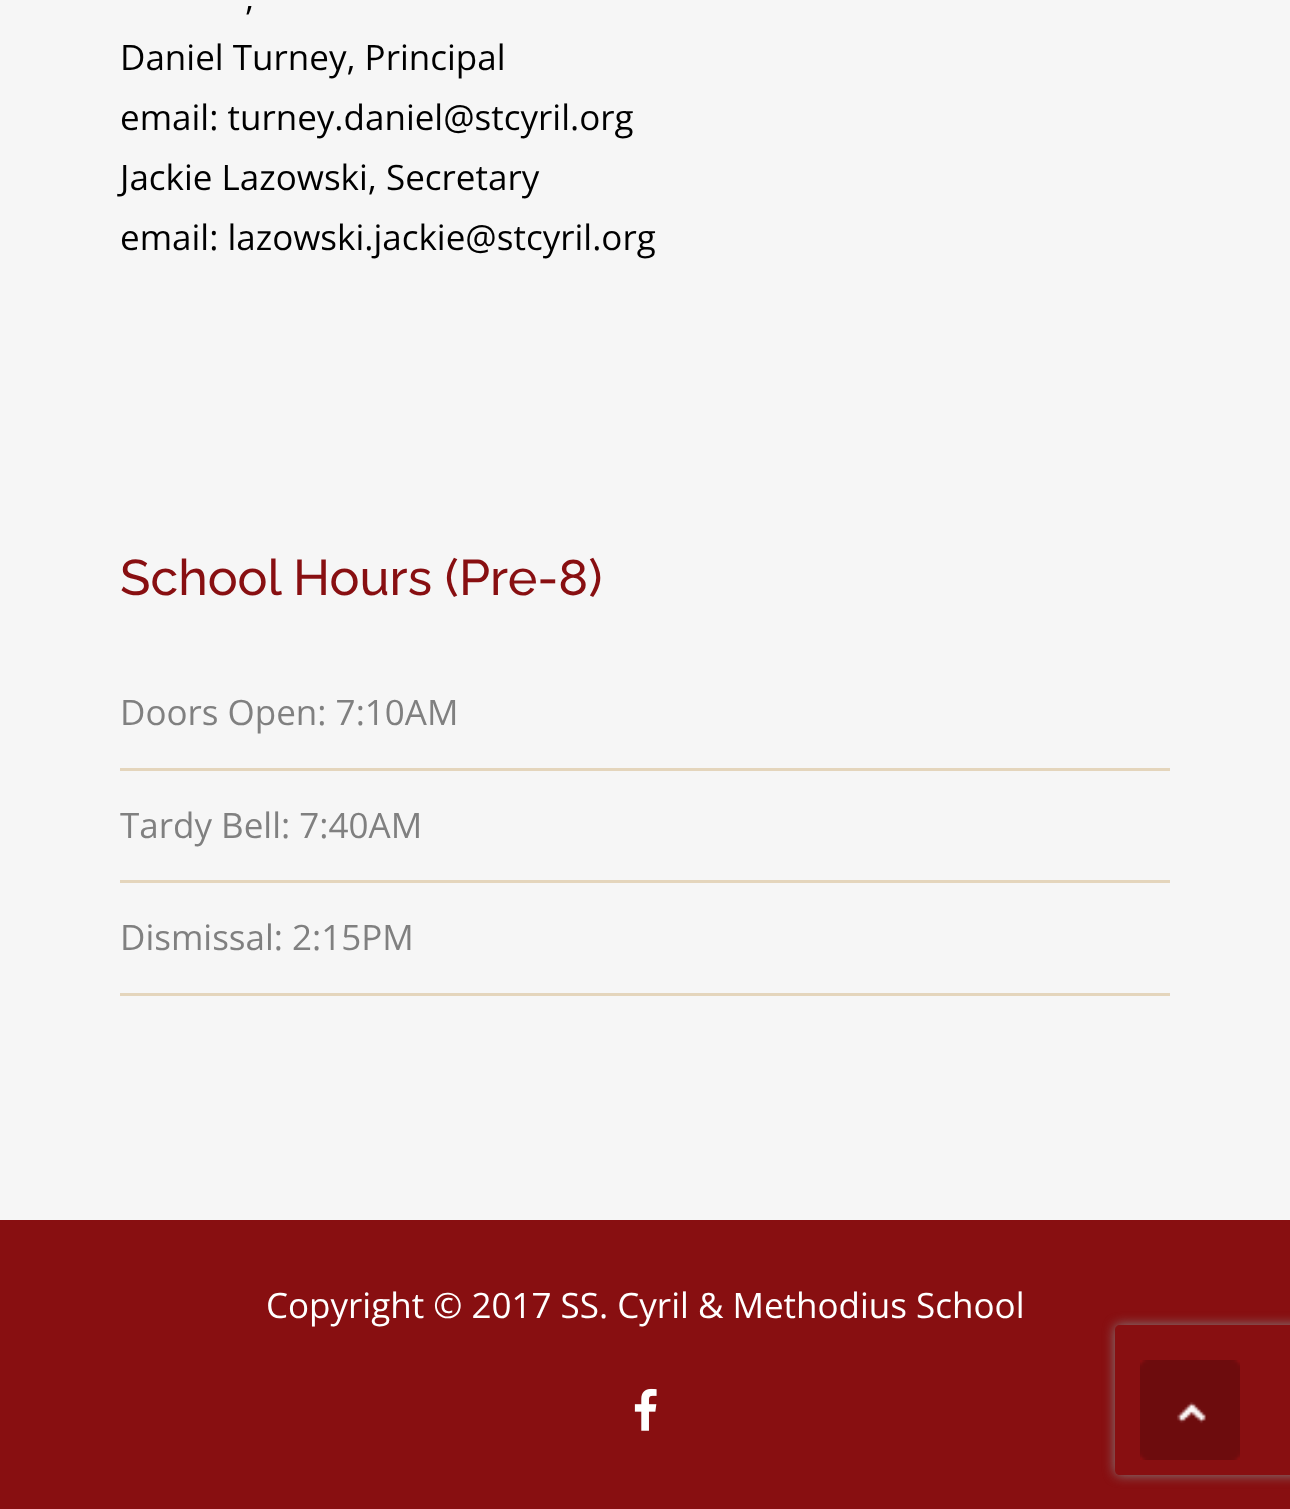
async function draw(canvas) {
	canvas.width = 1290;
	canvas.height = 1509;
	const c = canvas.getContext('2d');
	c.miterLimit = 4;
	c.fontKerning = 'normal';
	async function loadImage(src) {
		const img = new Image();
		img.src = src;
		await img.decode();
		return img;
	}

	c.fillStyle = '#f6f6f6';
	c.fillRect(0, 0, 1290, 1509);
	c.font = '35px Open Sans';
	c.fillStyle = '#000';
	for (const [text, x, y] of [
		[',', 245, 10],
		['Daniel Turney, Principal', 120, 70],
		['email: turney.daniel@stcyril.org', 120, 130],
		['Jackie Lazowski, Secretary', 120, 190],
		['email: lazowski.jackie@stcyril.org', 120, 250],
	]) {
		c.fillText(text, x, y);
	}
	c.font = '500 50px Raleway';
	c.fillStyle = '#880f11';
	c.fillText('School Hours (Pre-8)', 120, 595);
	c.fillStyle = '#e4d5bc';
	c.fillRect(120, 768, 1050, 3);
	c.font = '35px Open Sans';
	c.fillStyle = '#808080';
	c.fillText('Doors Open: 7:10AM', 120, 725);
	c.fillStyle = '#e4d5bc';
	c.fillRect(120, 880, 1050, 3);
	c.fillStyle = '#808080';
	c.fillText('Tardy Bell: 7:40AM', 120, 838);
	c.fillStyle = '#e4d5bc';
	c.fillRect(120, 993, 1050, 3);
	c.fillStyle = '#808080';
	c.fillText('Dismissal: 2:15PM', 120, 950);
	c.fillStyle = '#880f11';
	c.fillRect(0, 1220, 1290, 289);
	c.fillStyle = '#fff';
	c.fillText('Copyright © 2017 SS. Cyril & Methodius School', 266, 1318);
	c.drawImage(await loadImage('img1.png'), 634, 1388, 23, 43);
	c.save();
	c.beginPath();
	c.moveTo(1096, 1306);
	c.lineTo(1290, 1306);
	c.lineTo(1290, 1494);
	c.lineTo(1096, 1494);
	c.closePath();
	c.moveTo(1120, 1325);
	c.lineTo(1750, 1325);
	c.bezierCurveTo(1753, 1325, 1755, 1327, 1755, 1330);
	c.lineTo(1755, 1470);
	c.bezierCurveTo(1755, 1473, 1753, 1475, 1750, 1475);
	c.lineTo(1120, 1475);
	c.bezierCurveTo(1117, 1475, 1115, 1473, 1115, 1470);
	c.lineTo(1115, 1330);
	c.bezierCurveTo(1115, 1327, 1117, 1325, 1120, 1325);
	c.closePath();
	c.clip('evenodd');
	c.fillStyle = '#808080';
	c.filter = 'blur(6px)';
	c.beginPath();
	c.roundRect(1115, 1325, 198, 150, 5);
	c.fill();
	c.filter = 'none';
	c.restore();
	c.drawImage(await loadImage('img2.png'), 1140, 1360, 100, 100);
}

draw(document.querySelector('canvas'));
